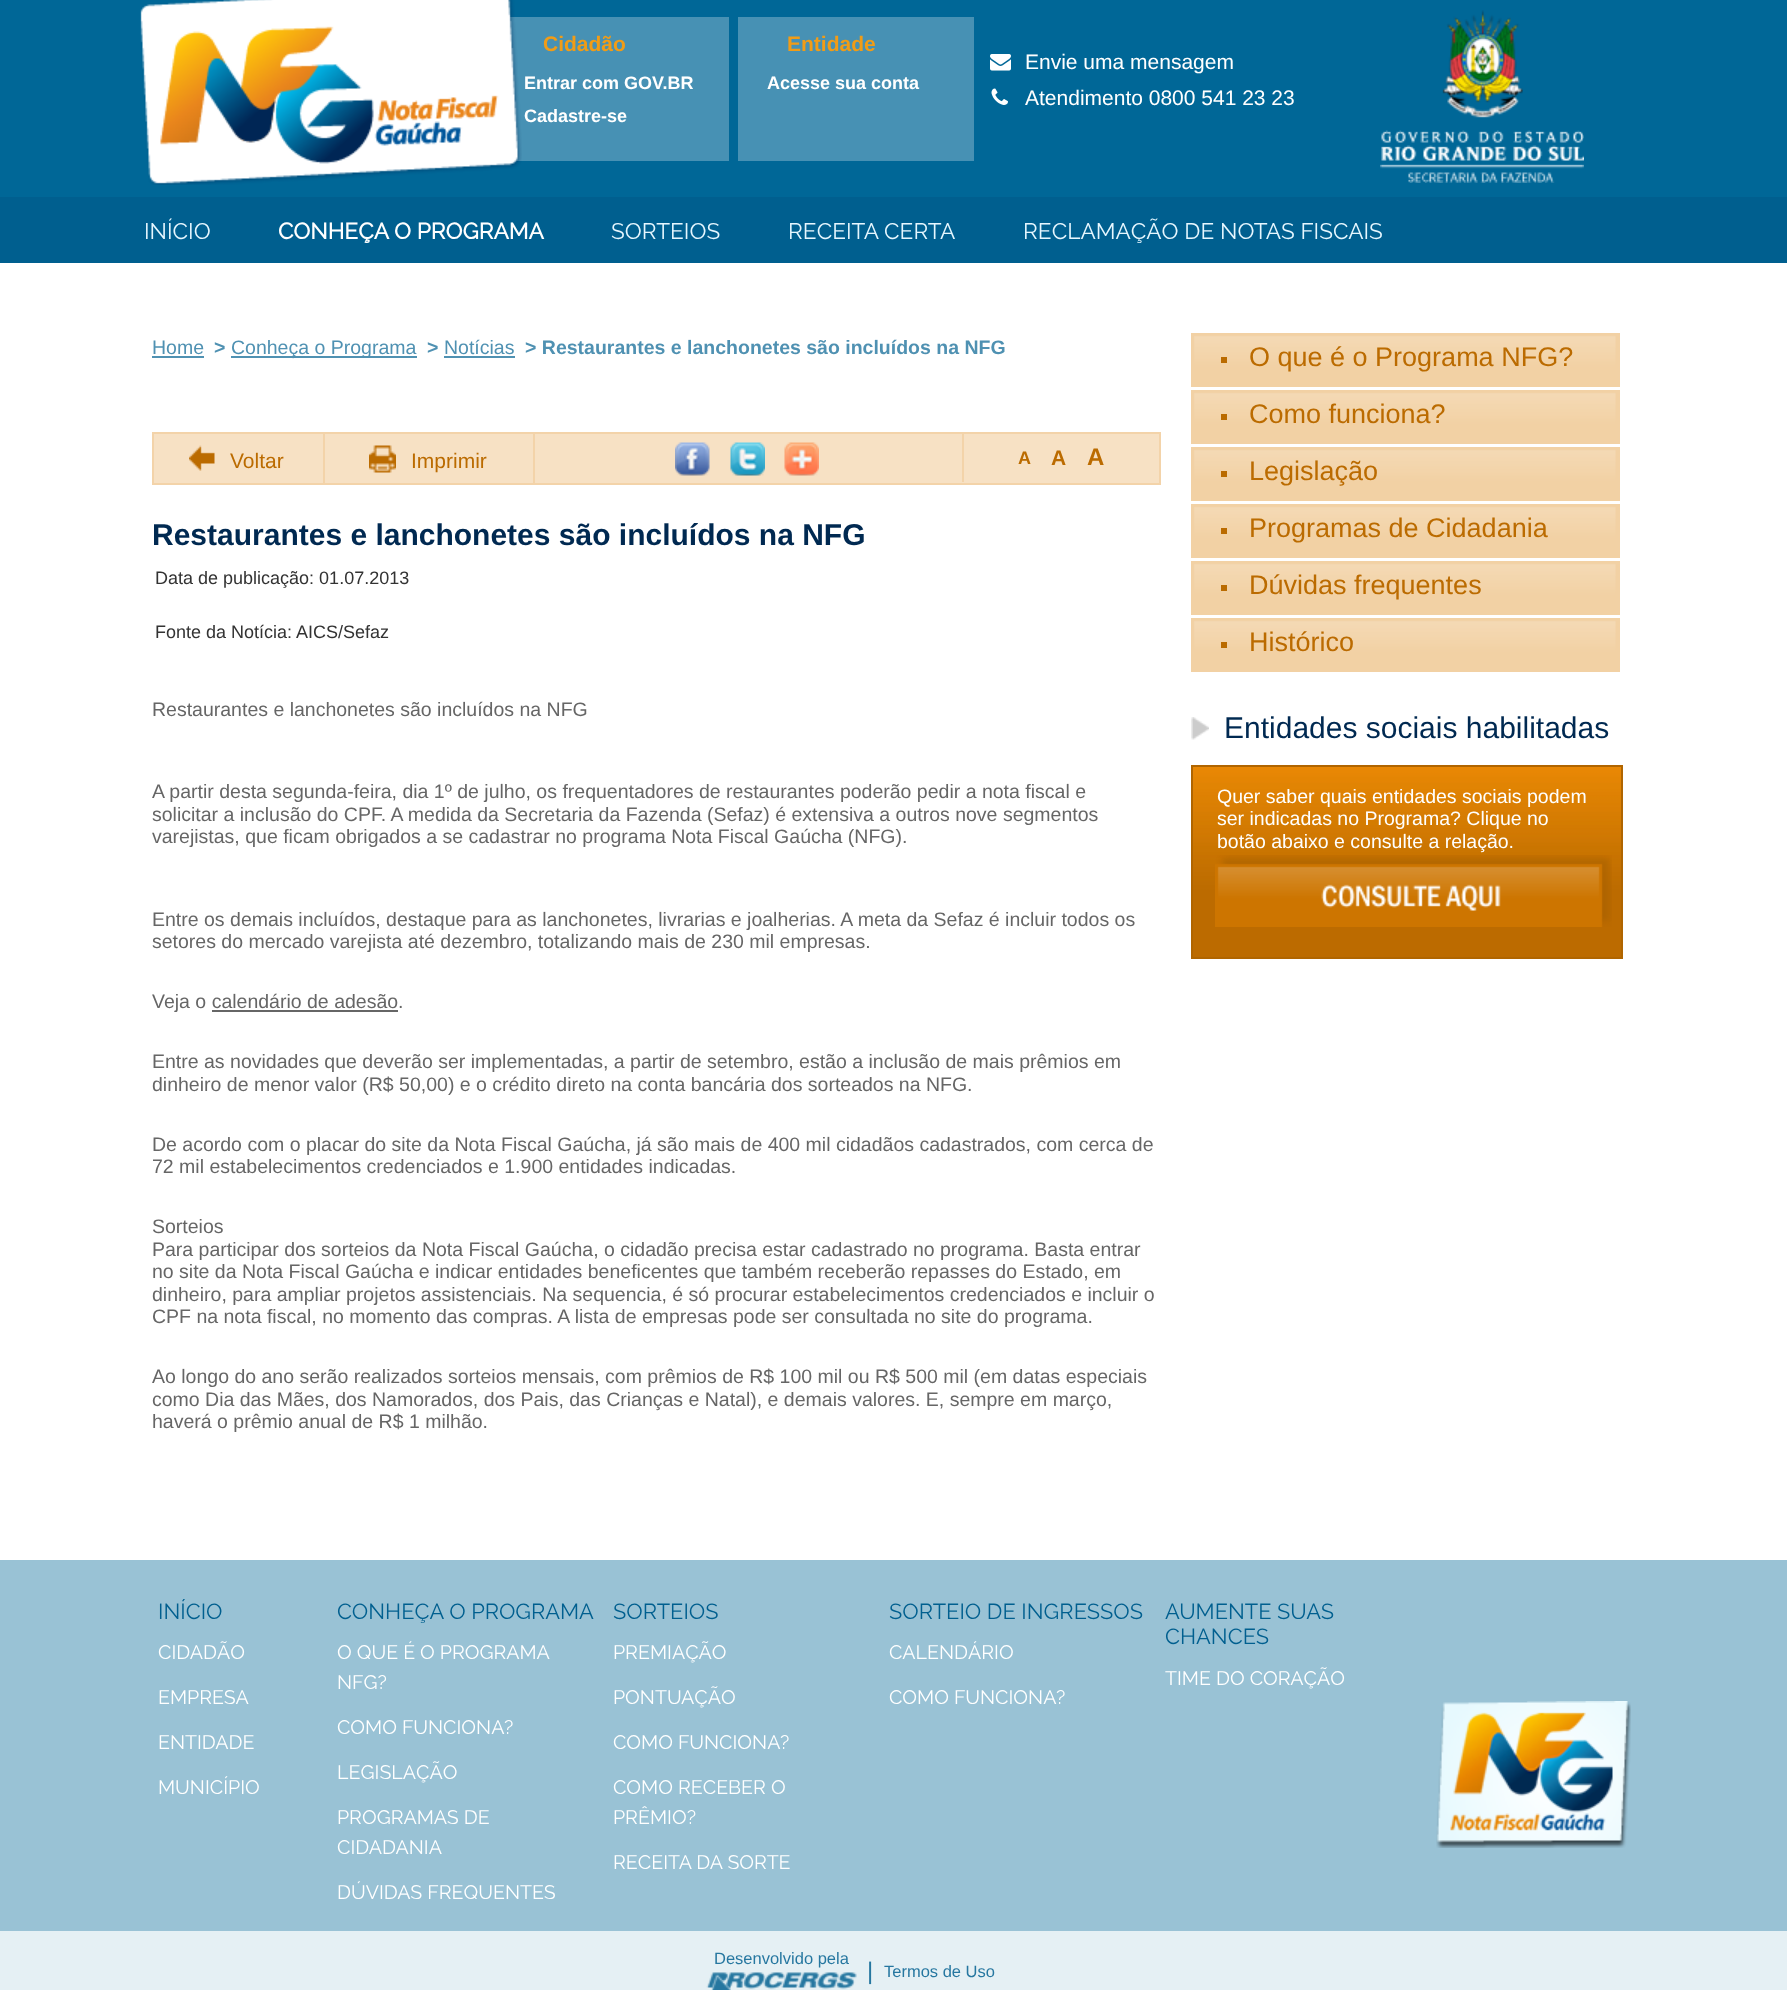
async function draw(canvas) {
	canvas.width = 1787;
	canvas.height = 1990;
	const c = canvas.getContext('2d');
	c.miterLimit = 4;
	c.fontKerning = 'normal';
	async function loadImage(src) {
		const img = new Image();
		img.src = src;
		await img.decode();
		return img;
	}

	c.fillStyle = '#fff';
	c.fillRect(0, 0, 1787, 1990);
	c.fillStyle = '#006797';
	c.fillRect(0, 0, 1787, 197);
	c.fillStyle = '#4791b4';
	c.fillRect(509, 17, 220, 144);
	c.drawImage(await loadImage('img1.png'), 140, 0, 382, 185);
	c.font = 'bold 21px Liberation Sans';
	c.fillStyle = '#f19c16';
	c.fillText('Cidadão', 543, 51);
	c.font = 'bold 18px Liberation Sans';
	c.fillStyle = '#fff';
	c.fillText('Entrar com GOV.BR', 524, 89);
	c.fillText('Cadastre-se', 524, 122);
	c.fillStyle = '#4791b4';
	c.fillRect(738, 17, 236, 144);
	c.font = 'bold 21px Liberation Sans';
	c.fillStyle = '#f19c16';
	c.fillText('Entidade', 787, 51);
	c.font = 'bold 18px Liberation Sans';
	c.fillStyle = '#fff';
	c.fillText('Acesse sua conta', 767, 89);
	c.drawImage(await loadImage('img2.png'), 990, 54, 21, 17);
	c.font = '21px Liberation Sans';
	c.fillText('Envie uma mensagem', 1025, 69);
	c.drawImage(await loadImage('img3.png'), 991, 88, 17, 17);
	c.fillText('Atendimento 0800 541 23 23', 1025, 105);
	c.drawImage(await loadImage('img4.png'), 1380, 10, 204, 173);
	c.fillStyle = '#005f8f';
	c.fillRect(0, 197, 1787, 66);
	c.font = '22.5px Raleway';
	c.fillStyle = '#e6f7ff';
	c.fillText('INÍCIO', 144, 239);
	c.font = 'bold 22.5px Raleway';
	c.fillStyle = '#fff';
	c.fillText('CONHEÇA O PROGRAMA', 278, 239);
	c.font = '22.5px Raleway';
	c.fillStyle = '#e6f7ff';
	for (const [text, x, y] of [
		['SORTEIOS', 611, 239],
		['RECEITA CERTA', 788, 239],
		['RECLAMAÇÃO DE NOTAS FISCAIS', 1023, 239],
	]) {
		c.fillText(text, x, y);
	}
	c.font = '19.5px Liberation Sans';
	c.fillStyle = '#4f91b2';
	c.fillText('Home', 152, 354);
	c.fillRect(152, 356, 52, 2);
	c.font = 'bold 19.5px Liberation Sans';
	c.fillText('>', 214, 354);
	c.fillRect(231, 356, 186, 2);
	c.font = '19.5px Liberation Sans';
	c.fillText('Conheça o Programa', 231, 354);
	c.font = 'bold 19.5px Liberation Sans';
	c.fillText('>', 427, 354);
	c.font = '19.5px Liberation Sans';
	c.fillText('Notícias', 444, 354);
	c.fillRect(444, 356, 71, 2);
	c.font = 'bold 19.5px Liberation Sans';
	c.fillText('> Restaurantes e lanchonetes são incluídos na NFG', 525, 354);
	c.fillStyle = '#f7e1c4';
	c.beginPath();
	c.rect(153, 433, 1007, 51);
	c.fill();
	c.strokeStyle = '#f3d3a9';
	c.lineWidth = 2;
	c.stroke();
	c.fillStyle = '#f3d3a9';
	c.fillRect(323, 434, 2, 51);
	c.drawImage(await loadImage('img5.png'), 189, 445, 26, 26);
	c.font = '21px Liberation Sans';
	c.fillStyle = '#bb6b00';
	c.fillText('Voltar', 230, 468);
	c.fillStyle = '#f3d3a9';
	c.fillRect(533, 434, 2, 51);
	c.drawImage(await loadImage('img6.png'), 369, 445, 27, 28);
	c.fillStyle = '#bb6b00';
	c.fillText('Imprimir', 411, 468);
	c.fillStyle = '#f3d3a9';
	c.fillRect(962, 434, 2, 48);
	c.drawImage(await loadImage('img7.png'), 675, 442, 35, 34);
	c.drawImage(await loadImage('img8.png'), 730, 442, 35, 34);
	c.drawImage(await loadImage('img9.png'), 784, 442, 35, 34);
	c.font = 'bold 18px Liberation Sans';
	c.fillStyle = '#bb6b00';
	c.fillText('A', 1018, 464);
	c.font = 'bold 21px Liberation Sans';
	c.fillText('A', 1051, 465);
	c.font = 'bold 24px Liberation Sans';
	c.fillText('A', 1087, 465);
	c.font = 'bold 30px Liberation Sans';
	c.fillStyle = '#002951';
	c.fillText('Restaurantes e lanchonetes são incluídos na NFG', 152, 545);
	c.font = '18px Liberation Sans';
	c.fillStyle = '#333';
	c.fillText('Data de publicação: 01.07.2013', 155, 584);
	c.fillText('Fonte da Notícia: AICS/Sefaz', 155, 638);
	c.font = '19.5px Liberation Sans';
	c.fillStyle = '#666';
	for (const [text, x, y] of [
		['Restaurantes e lanchonetes são incluídos na NFG', 152, 716],
		['A partir desta segunda-feira, dia 1º de julho, os frequentadores de restaurantes poderão pedir a nota fiscal e', 152, 798],
		['solicitar a inclusão do CPF. A medida da Secretaria da Fazenda (Sefaz) é extensiva a outros nove segmentos', 152, 821],
		['varejistas, que ficam obrigados a se cadastrar no programa Nota Fiscal Gaúcha (NFG).', 152, 843],
		['Entre os demais incluídos, destaque para as lanchonetes, livrarias e joalherias. A meta da Sefaz é incluir todos os', 152, 926],
		['setores do mercado varejista até dezembro, totalizando mais de 230 mil empresas.', 152, 948],
		['Veja o calendário de adesão.', 152, 1008],
	]) {
		c.fillText(text, x, y);
	}
	c.fillRect(212, 1010, 186, 2);
	for (const [text, x, y] of [
		['Entre as novidades que deverão ser implementadas, a partir de setembro, estão a inclusão de mais prêmios em', 152, 1068],
		['dinheiro de menor valor (R$ 50,00) e o crédito direto na conta bancária dos sorteados na NFG.', 152, 1091],
		['De acordo com o placar do site da Nota Fiscal Gaúcha, já são mais de 400 mil cidadãos cadastrados, com cerca de', 152, 1151],
		['72 mil estabelecimentos credenciados e 1.900 entidades indicadas.', 152, 1173],
		['Sorteios', 152, 1233],
		['Para participar dos sorteios da Nota Fiscal Gaúcha, o cidadão precisa estar cadastrado no programa. Basta entrar', 152, 1256],
		['no site da Nota Fiscal Gaúcha e indicar entidades beneficentes que também receberão repasses do Estado, em', 152, 1278],
		['dinheiro, para ampliar projetos assistenciais. Na sequencia, é só procurar estabelecimentos credenciados e incluir o', 152, 1301],
		['CPF na nota fiscal, no momento das compras. A lista de empresas pode ser consultada no site do programa.', 152, 1323],
		['Ao longo do ano serão realizados sorteios mensais, com prêmios de R$ 100 mil ou R$ 500 mil (em datas especiais', 152, 1383],
		['como Dia das Mães, dos Namorados, dos Pais, das Crianças e Natal), e demais valores. E, sempre em março,', 152, 1406],
		['haverá o prêmio anual de R$ 1 milhão.', 152, 1428],
	]) {
		c.fillText(text, x, y);
	}
	c.drawImage(await loadImage('img10.png'), 1191, 333, 429, 54);
	c.fillStyle = '#ba6b00';
	c.fillRect(1221, 357, 6, 6);
	c.font = '27px Liberation Sans';
	c.fillStyle = '#bb6b00';
	c.fillText('O que é o Programa NFG?', 1249, 366);
	c.drawImage(await loadImage('img10.png'), 1191, 390, 429, 54);
	c.fillStyle = '#ba6b00';
	c.fillRect(1221, 414, 6, 6);
	c.fillStyle = '#bb6b00';
	c.fillText('Como funciona?', 1249, 423);
	c.drawImage(await loadImage('img10.png'), 1191, 447, 429, 54);
	c.fillStyle = '#ba6b00';
	c.fillRect(1221, 471, 6, 6);
	c.fillStyle = '#bb6b00';
	c.fillText('Legislação', 1249, 480);
	c.drawImage(await loadImage('img10.png'), 1191, 504, 429, 54);
	c.fillStyle = '#ba6b00';
	c.fillRect(1221, 528, 6, 6);
	c.fillStyle = '#bb6b00';
	c.fillText('Programas de Cidadania', 1249, 537);
	c.drawImage(await loadImage('img10.png'), 1191, 561, 429, 54);
	c.fillStyle = '#ba6b00';
	c.fillRect(1221, 585, 6, 6);
	c.fillStyle = '#bb6b00';
	c.fillText('Dúvidas frequentes', 1249, 594);
	c.drawImage(await loadImage('img10.png'), 1191, 618, 429, 54);
	c.fillStyle = '#ba6b00';
	c.fillRect(1221, 642, 6, 6);
	c.fillStyle = '#bb6b00';
	c.fillText('Histórico', 1249, 651);
	c.drawImage(await loadImage('img11.png'), 1191, 717, 18, 23);
	c.font = '30px Liberation Sans';
	c.fillStyle = '#002951';
	c.fillText('Entidades sociais habilitadas', 1224, 738);
	c.drawImage(await loadImage('img12.png'), 1193, 767, 428, 190);
	c.strokeStyle = '#b06500';
	c.strokeRect(1192, 766, 430, 192);
	c.font = '19.5px Liberation Sans';
	c.fillStyle = '#fff';
	for (const [text, x, y] of [
		['Quer saber quais entidades sociais podem', 1217, 803],
		['ser indicadas no Programa? Clique no', 1217, 825],
		['botão abaixo e consulte a relação.', 1217, 848],
	]) {
		c.fillText(text, x, y);
	}
	c.drawImage(await loadImage('img13.png'), 1215, 855, 397, 72);
	c.fillStyle = '#99c2d5';
	c.fillRect(0, 1560, 1787, 371);
	c.font = '21.75px Raleway';
	c.fillStyle = '#005f8f';
	c.fillText('INÍCIO', 158, 1619);
	c.font = '19.5px Raleway';
	c.fillStyle = '#fff';
	for (const [text, x, y] of [
		['CIDADÃO', 158, 1659],
		['EMPRESA', 158, 1704],
		['ENTIDADE', 158, 1749],
		['MUNICÍPIO', 158, 1794],
	]) {
		c.fillText(text, x, y);
	}
	c.font = '21.75px Raleway';
	c.fillStyle = '#005f8f';
	c.fillText('CONHEÇA O PROGRAMA', 337, 1619);
	c.font = '19.5px Raleway';
	c.fillStyle = '#fff';
	for (const [text, x, y] of [
		['O QUE É O PROGRAMA', 337, 1659],
		['NFG?', 337, 1689],
		['COMO FUNCIONA?', 337, 1734],
		['LEGISLAÇÃO', 337, 1779],
		['PROGRAMAS DE', 337, 1824],
		['CIDADANIA', 337, 1854],
		['DÚVIDAS FREQUENTES', 337, 1899],
	]) {
		c.fillText(text, x, y);
	}
	c.font = '21.75px Raleway';
	c.fillStyle = '#005f8f';
	c.fillText('SORTEIOS', 613, 1619);
	c.font = '19.5px Raleway';
	c.fillStyle = '#fff';
	for (const [text, x, y] of [
		['PREMIAÇÃO', 613, 1659],
		['PONTUAÇÃO', 613, 1704],
		['COMO FUNCIONA?', 613, 1749],
		['COMO RECEBER O', 613, 1794],
		['PRÊMIO?', 613, 1824],
		['RECEITA DA SORTE', 613, 1869],
	]) {
		c.fillText(text, x, y);
	}
	c.font = '21.75px Raleway';
	c.fillStyle = '#005f8f';
	c.fillText('SORTEIO DE INGRESSOS', 889, 1619);
	c.font = '19.5px Raleway';
	c.fillStyle = '#fff';
	c.fillText('CALENDÁRIO', 889, 1659);
	c.fillText('COMO FUNCIONA?', 889, 1704);
	c.font = '21.75px Raleway';
	c.fillStyle = '#005f8f';
	c.fillText('AUMENTE SUAS', 1165, 1619);
	c.fillText('CHANCES', 1165, 1644);
	c.font = '19.5px Raleway';
	c.fillStyle = '#fff';
	c.fillText('TIME DO CORAÇÃO', 1165, 1685);
	c.drawImage(await loadImage('img14.png'), 1436, 1701, 195, 147);
	c.fillStyle = '#e5f0f4';
	c.fillRect(0, 1931, 1787, 59);
	c.font = '16.5px Liberation Sans';
	c.fillStyle = '#2677a0';
	c.fillText('Desenvolvido pela', 714, 1964);
	c.drawImage(await loadImage('img15.png'), 706, 1972, 151, 18);
	c.font = '24px Liberation Sans';
	c.fillText('|', 867, 1979);
	c.font = '16.5px Liberation Sans';
	c.fillText('Termos de Uso', 884, 1977);
}

draw(document.querySelector('canvas'));
